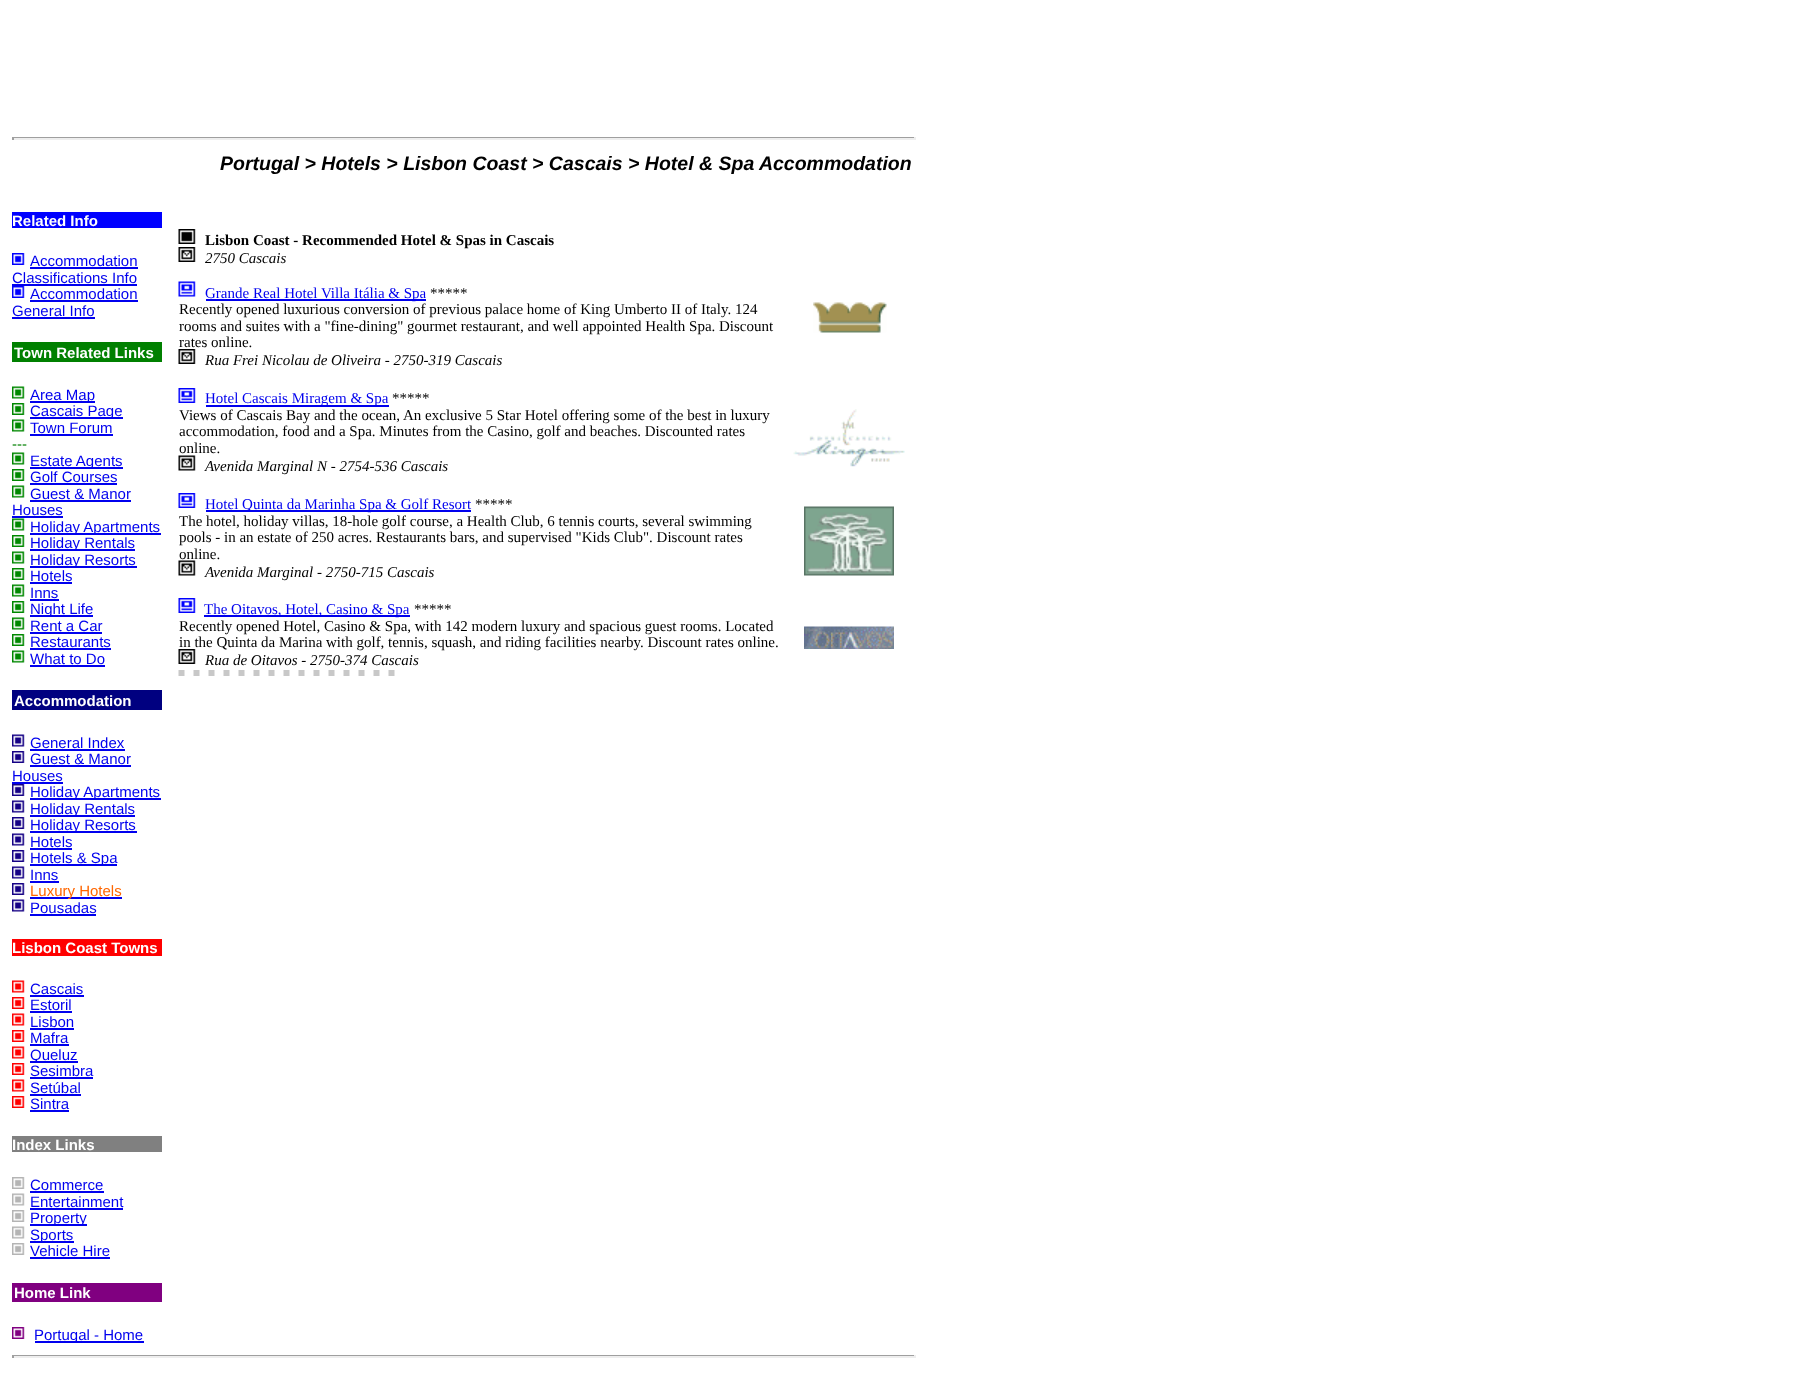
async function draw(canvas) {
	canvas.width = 1806;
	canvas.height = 1397;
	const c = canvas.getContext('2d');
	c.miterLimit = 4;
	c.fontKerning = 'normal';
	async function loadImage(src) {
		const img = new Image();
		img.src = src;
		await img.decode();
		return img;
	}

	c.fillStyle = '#fff';
	c.fillRect(0, 0, 1806, 1397);
	for (const [x, y, w, h, color] of [
		[12, 137, 903, 1, '#9f9f9f'],
		[914, 137, 2, 3, '#eee'],
		[12, 138, 903, 2, '#eee'],
		[12, 137, 2, 3, '#9f9f9f'],
	]) {
		c.fillStyle = color;
		c.fillRect(x, y, w, h);
	}
	c.font = 'italic bold 19.5px Liberation Sans';
	c.fillStyle = '#000';
	c.fillText('Portugal > Hotels > Lisbon Coast > Cascais > Hotel & Spa Accommodation', 220, 170);
	c.fillStyle = '#00f';
	c.fillRect(12, 212, 150, 16);
	c.font = 'bold 15px Liberation Sans';
	c.fillStyle = '#fff';
	c.fillText('Related Info', 12, 226);
	c.drawImage(await loadImage('img1.png'), 12, 253, 13, 12);
	c.font = '15px Liberation Sans';
	c.fillStyle = '#00e';
	c.fillText('Accommodation', 30, 266);
	c.fillRect(30, 267, 108, 2);
	c.fillText('Classifications Info', 12, 283);
	c.fillRect(12, 284, 125, 2);
	c.drawImage(await loadImage('img1.png'), 12, 286, 13, 12);
	c.fillText('Accommodation', 30, 299);
	c.fillRect(30, 300, 108, 2);
	c.fillText('General Info', 12, 316);
	c.fillRect(12, 317, 83, 2);
	c.fillStyle = '#008000';
	c.fillRect(12, 342, 150, 20);
	c.font = 'bold 15px Liberation Sans';
	c.fillStyle = '#fff';
	c.fillText('Town Related Links', 14, 358);
	c.drawImage(await loadImage('img2.png'), 12, 386, 13, 13);
	c.fillStyle = '#00e';
	c.fillRect(30, 401, 65, 2);
	c.font = '15px Liberation Sans';
	c.fillText('Area Map', 30, 400);
	c.drawImage(await loadImage('img3.png'), 12, 403, 13, 12);
	c.fillRect(30, 417, 93, 2);
	c.fillText('Cascais Page', 30, 416);
	c.drawImage(await loadImage('img2.png'), 12, 419, 13, 13);
	c.fillText('Town Forum', 30, 433);
	c.fillRect(30, 434, 83, 2);
	c.fillStyle = '#008000';
	c.fillText('---', 12, 449);
	c.drawImage(await loadImage('img2.png'), 12, 452, 13, 13);
	c.fillStyle = '#00e';
	c.fillRect(30, 467, 93, 2);
	c.fillText('Estate Agents', 30, 466);
	c.drawImage(await loadImage('img3.png'), 12, 469, 13, 12);
	c.fillText('Golf Courses', 30, 482);
	c.fillRect(30, 483, 87, 2);
	c.drawImage(await loadImage('img2.png'), 12, 485, 13, 13);
	c.fillText('Guest & Manor', 30, 499);
	c.fillRect(30, 500, 101, 2);
	c.fillText('Houses', 12, 515);
	c.fillRect(12, 516, 51, 2);
	c.drawImage(await loadImage('img2.png'), 12, 518, 13, 13);
	c.fillRect(30, 533, 131, 2);
	c.fillText('Holiday Apartments', 30, 532);
	c.drawImage(await loadImage('img3.png'), 12, 535, 13, 12);
	c.fillRect(30, 549, 105, 2);
	c.fillText('Holiday Rentals', 30, 548);
	c.drawImage(await loadImage('img2.png'), 12, 551, 13, 13);
	c.fillRect(30, 566, 107, 2);
	c.fillText('Holiday Resorts', 30, 565);
	c.drawImage(await loadImage('img3.png'), 12, 568, 13, 12);
	c.fillText('Hotels', 30, 581);
	c.fillRect(30, 582, 42, 2);
	c.drawImage(await loadImage('img2.png'), 12, 584, 13, 13);
	c.fillText('Inns', 30, 598);
	c.fillRect(30, 599, 29, 2);
	c.drawImage(await loadImage('img3.png'), 12, 601, 13, 12);
	c.fillRect(30, 615, 63, 2);
	c.fillText('Night Life', 30, 614);
	c.drawImage(await loadImage('img2.png'), 12, 617, 13, 13);
	c.fillText('Rent a Car', 30, 631);
	c.fillRect(30, 632, 72, 2);
	c.drawImage(await loadImage('img3.png'), 12, 634, 13, 12);
	c.fillText('Restaurants', 30, 647);
	c.fillRect(30, 648, 81, 2);
	c.drawImage(await loadImage('img2.png'), 12, 650, 13, 13);
	c.fillText('What to Do', 30, 664);
	c.fillRect(30, 665, 75, 2);
	c.fillStyle = '#000080';
	c.fillRect(12, 690, 150, 20);
	c.font = 'bold 15px Liberation Sans';
	c.fillStyle = '#fff';
	c.fillText('Accommodation', 14, 706);
	c.drawImage(await loadImage('img4.png'), 12, 734, 13, 13);
	c.font = '15px Liberation Sans';
	c.fillStyle = '#00e';
	c.fillText('General Index', 30, 748);
	c.fillRect(30, 749, 95, 2);
	c.drawImage(await loadImage('img5.png'), 12, 751, 13, 12);
	c.fillText('Guest & Manor', 30, 764);
	c.fillRect(30, 765, 101, 2);
	c.fillText('Houses', 12, 781);
	c.fillRect(12, 782, 51, 2);
	c.drawImage(await loadImage('img5.png'), 12, 784, 13, 12);
	c.fillRect(30, 798, 131, 2);
	c.fillText('Holiday Apartments', 30, 797);
	c.drawImage(await loadImage('img4.png'), 12, 800, 13, 13);
	c.fillRect(30, 815, 105, 2);
	c.fillText('Holiday Rentals', 30, 814);
	c.drawImage(await loadImage('img5.png'), 12, 817, 13, 12);
	c.fillRect(30, 831, 107, 2);
	c.fillText('Holiday Resorts', 30, 830);
	c.drawImage(await loadImage('img4.png'), 12, 833, 13, 13);
	c.fillText('Hotels', 30, 847);
	c.fillRect(30, 848, 42, 2);
	c.drawImage(await loadImage('img5.png'), 12, 850, 13, 12);
	c.fillRect(30, 864, 87, 2);
	c.fillText('Hotels & Spa', 30, 863);
	c.drawImage(await loadImage('img4.png'), 12, 866, 13, 13);
	c.fillText('Inns', 30, 880);
	c.fillRect(30, 881, 29, 2);
	c.drawImage(await loadImage('img5.png'), 12, 883, 13, 12);
	c.fillRect(30, 897, 92, 2);
	c.fillStyle = '#f60';
	c.fillText('Luxury Hotels', 30, 896);
	c.drawImage(await loadImage('img4.png'), 12, 899, 13, 13);
	c.fillStyle = '#00e';
	c.fillText('Pousadas', 30, 913);
	c.fillRect(30, 914, 66, 2);
	c.fillStyle = '#f00';
	c.fillRect(12, 939, 150, 17);
	c.font = 'bold 15px Liberation Sans';
	c.fillStyle = '#fff';
	c.fillText('Lisbon Coast Towns', 12, 953);
	c.drawImage(await loadImage('img6.png'), 12, 980, 13, 13);
	c.font = '15px Liberation Sans';
	c.fillStyle = '#00e';
	c.fillText('Cascais', 30, 994);
	c.fillRect(30, 995, 54, 2);
	c.drawImage(await loadImage('img7.png'), 12, 997, 13, 12);
	c.fillText('Estoril', 30, 1010);
	c.fillRect(30, 1011, 42, 2);
	c.drawImage(await loadImage('img6.png'), 12, 1013, 13, 13);
	c.fillText('Lisbon', 30, 1027);
	c.fillRect(30, 1028, 44, 2);
	c.drawImage(await loadImage('img7.png'), 12, 1030, 13, 12);
	c.fillText('Mafra', 30, 1043);
	c.fillRect(30, 1044, 39, 2);
	c.drawImage(await loadImage('img6.png'), 12, 1046, 13, 13);
	c.fillRect(30, 1061, 48, 2);
	c.fillText('Queluz', 30, 1060);
	c.drawImage(await loadImage('img7.png'), 12, 1063, 13, 12);
	c.fillText('Sesimbra', 30, 1076);
	c.fillRect(30, 1077, 63, 2);
	c.drawImage(await loadImage('img6.png'), 12, 1079, 13, 13);
	c.fillText('Setúbal', 30, 1093);
	c.fillRect(30, 1094, 51, 2);
	c.drawImage(await loadImage('img7.png'), 12, 1096, 13, 12);
	c.fillText('Sintra', 30, 1109);
	c.fillRect(30, 1110, 39, 2);
	c.fillStyle = '#808080';
	c.fillRect(12, 1136, 150, 16);
	c.font = 'bold 15px Liberation Sans';
	c.fillStyle = '#fff';
	c.fillText('Index Links', 12, 1150);
	c.drawImage(await loadImage('img8.png'), 12, 1177, 13, 12);
	c.font = '15px Liberation Sans';
	c.fillStyle = '#00e';
	c.fillText('Commerce', 30, 1190);
	c.fillRect(30, 1191, 74, 2);
	c.drawImage(await loadImage('img9.png'), 12, 1193, 13, 13);
	c.fillText('Entertainment', 30, 1207);
	c.fillRect(30, 1208, 93, 2);
	c.drawImage(await loadImage('img8.png'), 12, 1210, 13, 12);
	c.fillRect(30, 1224, 57, 2);
	c.fillText('Property', 30, 1223);
	c.drawImage(await loadImage('img9.png'), 12, 1226, 13, 13);
	c.fillRect(30, 1241, 44, 2);
	c.fillText('Sports', 30, 1240);
	c.drawImage(await loadImage('img8.png'), 12, 1243, 13, 12);
	c.fillText('Vehicle Hire', 30, 1256);
	c.fillRect(30, 1257, 80, 2);
	c.fillStyle = '#800080';
	c.fillRect(12, 1283, 150, 19);
	c.font = 'bold 15px Liberation Sans';
	c.fillStyle = '#fff';
	c.fillText('Home Link', 14, 1298);
	c.drawImage(await loadImage('img10.png'), 12, 1327, 13, 12);
	c.fillStyle = '#00e';
	c.fillRect(35, 1341, 109, 2);
	c.font = '15px Liberation Sans';
	c.fillText('Portugal - Home', 34, 1340);
	c.drawImage(await loadImage('img11.png'), 178, 229, 18, 15);
	c.font = 'bold 15px Liberation Serif';
	c.fillStyle = '#000';
	c.fillText('Lisbon Coast - Recommended Hotel & Spas in Cascais', 205, 245);
	c.drawImage(await loadImage('img12.png'), 178, 247, 18, 15);
	c.font = 'italic 15px Liberation Serif';
	c.fillText('2750 Cascais', 205, 263);
	c.drawImage(await loadImage('img13.png'), 178, 281, 18, 16);
	c.fillStyle = '#00e';
	c.fillRect(206, 299, 220, 2);
	c.font = '15px Liberation Serif';
	c.fillText('Grande Real Hotel Villa Itália & Spa', 205, 298);
	c.fillStyle = '#000';
	for (const [text, x, y] of [
		['*****', 430, 298],
		['Recently opened luxurious conversion of previous palace home of King Umberto II of Italy. 124', 179, 314],
		['rooms and suites with a "fine-dining" gourmet restaurant, and well appointed Health Spa. Discount', 179, 331],
		['rates online.', 179, 347],
	]) {
		c.fillText(text, x, y);
	}
	c.drawImage(await loadImage('img12.png'), 178, 349, 18, 15);
	c.font = 'italic 15px Liberation Serif';
	c.fillText('Rua Frei Nicolau de Oliveira - 2750-319 Cascais', 205, 365);
	c.drawImage(await loadImage('img14.png'), 813, 302, 74, 31);
	c.drawImage(await loadImage('img15.png'), 178, 388, 18, 15);
	c.fillStyle = '#00e';
	c.fillRect(206, 405, 183, 2);
	c.font = '15px Liberation Serif';
	c.fillText('Hotel Cascais Miragem & Spa', 205, 403);
	c.fillStyle = '#000';
	for (const [text, x, y] of [
		['*****', 392, 403],
		['Views of Cascais Bay and the ocean, An exclusive 5 Star Hotel offering some of the best in luxury', 179, 420],
		['accommodation, food and a Spa. Minutes from the Casino, golf and beaches. Discounted rates', 179, 436],
		['online.', 179, 453],
	]) {
		c.fillText(text, x, y);
	}
	c.drawImage(await loadImage('img16.png'), 178, 455, 18, 16);
	c.font = 'italic 15px Liberation Serif';
	c.fillText('Avenida Marginal N - 2754-536 Cascais', 205, 471);
	c.drawImage(await loadImage('img17.png'), 793, 409, 112, 58);
	c.drawImage(await loadImage('img15.png'), 178, 493, 18, 15);
	c.fillStyle = '#00e';
	c.fillRect(206, 510, 265, 2);
	c.font = '15px Liberation Serif';
	c.fillText('Hotel Quinta da Marinha Spa & Golf Resort', 205, 509);
	c.fillStyle = '#000';
	for (const [text, x, y] of [
		['*****', 475, 509],
		['The hotel, holiday villas, 18-hole golf course, a Health Club, 6 tennis courts, several swimming', 179, 526],
		['pools - in an estate of 250 acres. Restaurants bars, and supervised "Kids Club". Discount rates', 179, 542],
		['online.', 179, 559],
	]) {
		c.fillText(text, x, y);
	}
	c.drawImage(await loadImage('img16.png'), 178, 560, 18, 16);
	c.font = 'italic 15px Liberation Serif';
	c.fillText('Avenida Marginal - 2750-715 Cascais', 205, 577);
	c.drawImage(await loadImage('img18.png'), 804, 506, 90, 70);
	c.drawImage(await loadImage('img15.png'), 178, 598, 18, 15);
	c.fillStyle = '#00e';
	c.fillRect(204, 615, 206, 2);
	c.font = '15px Liberation Serif';
	c.fillText('The Oitavos, Hotel, Casino & Spa', 204, 614);
	c.fillStyle = '#000';
	for (const [text, x, y] of [
		['*****', 414, 614],
		['Recently opened Hotel, Casino & Spa, with 142 modern luxury and spacious guest rooms. Located', 179, 631],
		['in the Quinta da Marina with golf, tennis, squash, and riding facilities nearby. Discount rates online.', 179, 647],
	]) {
		c.fillText(text, x, y);
	}
	c.drawImage(await loadImage('img12.png'), 178, 649, 18, 15);
	c.font = 'italic 15px Liberation Serif';
	c.fillText('Rua de Oitavos - 2750-374 Cascais', 205, 665);
	c.drawImage(await loadImage('img19.png'), 804, 626, 90, 23);
	c.drawImage(await loadImage('img20.png'), 178, 670, 217, 6);
	for (const [x, y, w, h, color] of [
		[12, 1355, 903, 1, '#9f9f9f'],
		[914, 1355, 2, 3, '#eee'],
		[12, 1356, 903, 2, '#eee'],
		[12, 1355, 2, 3, '#9f9f9f'],
	]) {
		c.fillStyle = color;
		c.fillRect(x, y, w, h);
	}
}

draw(document.querySelector('canvas'));
